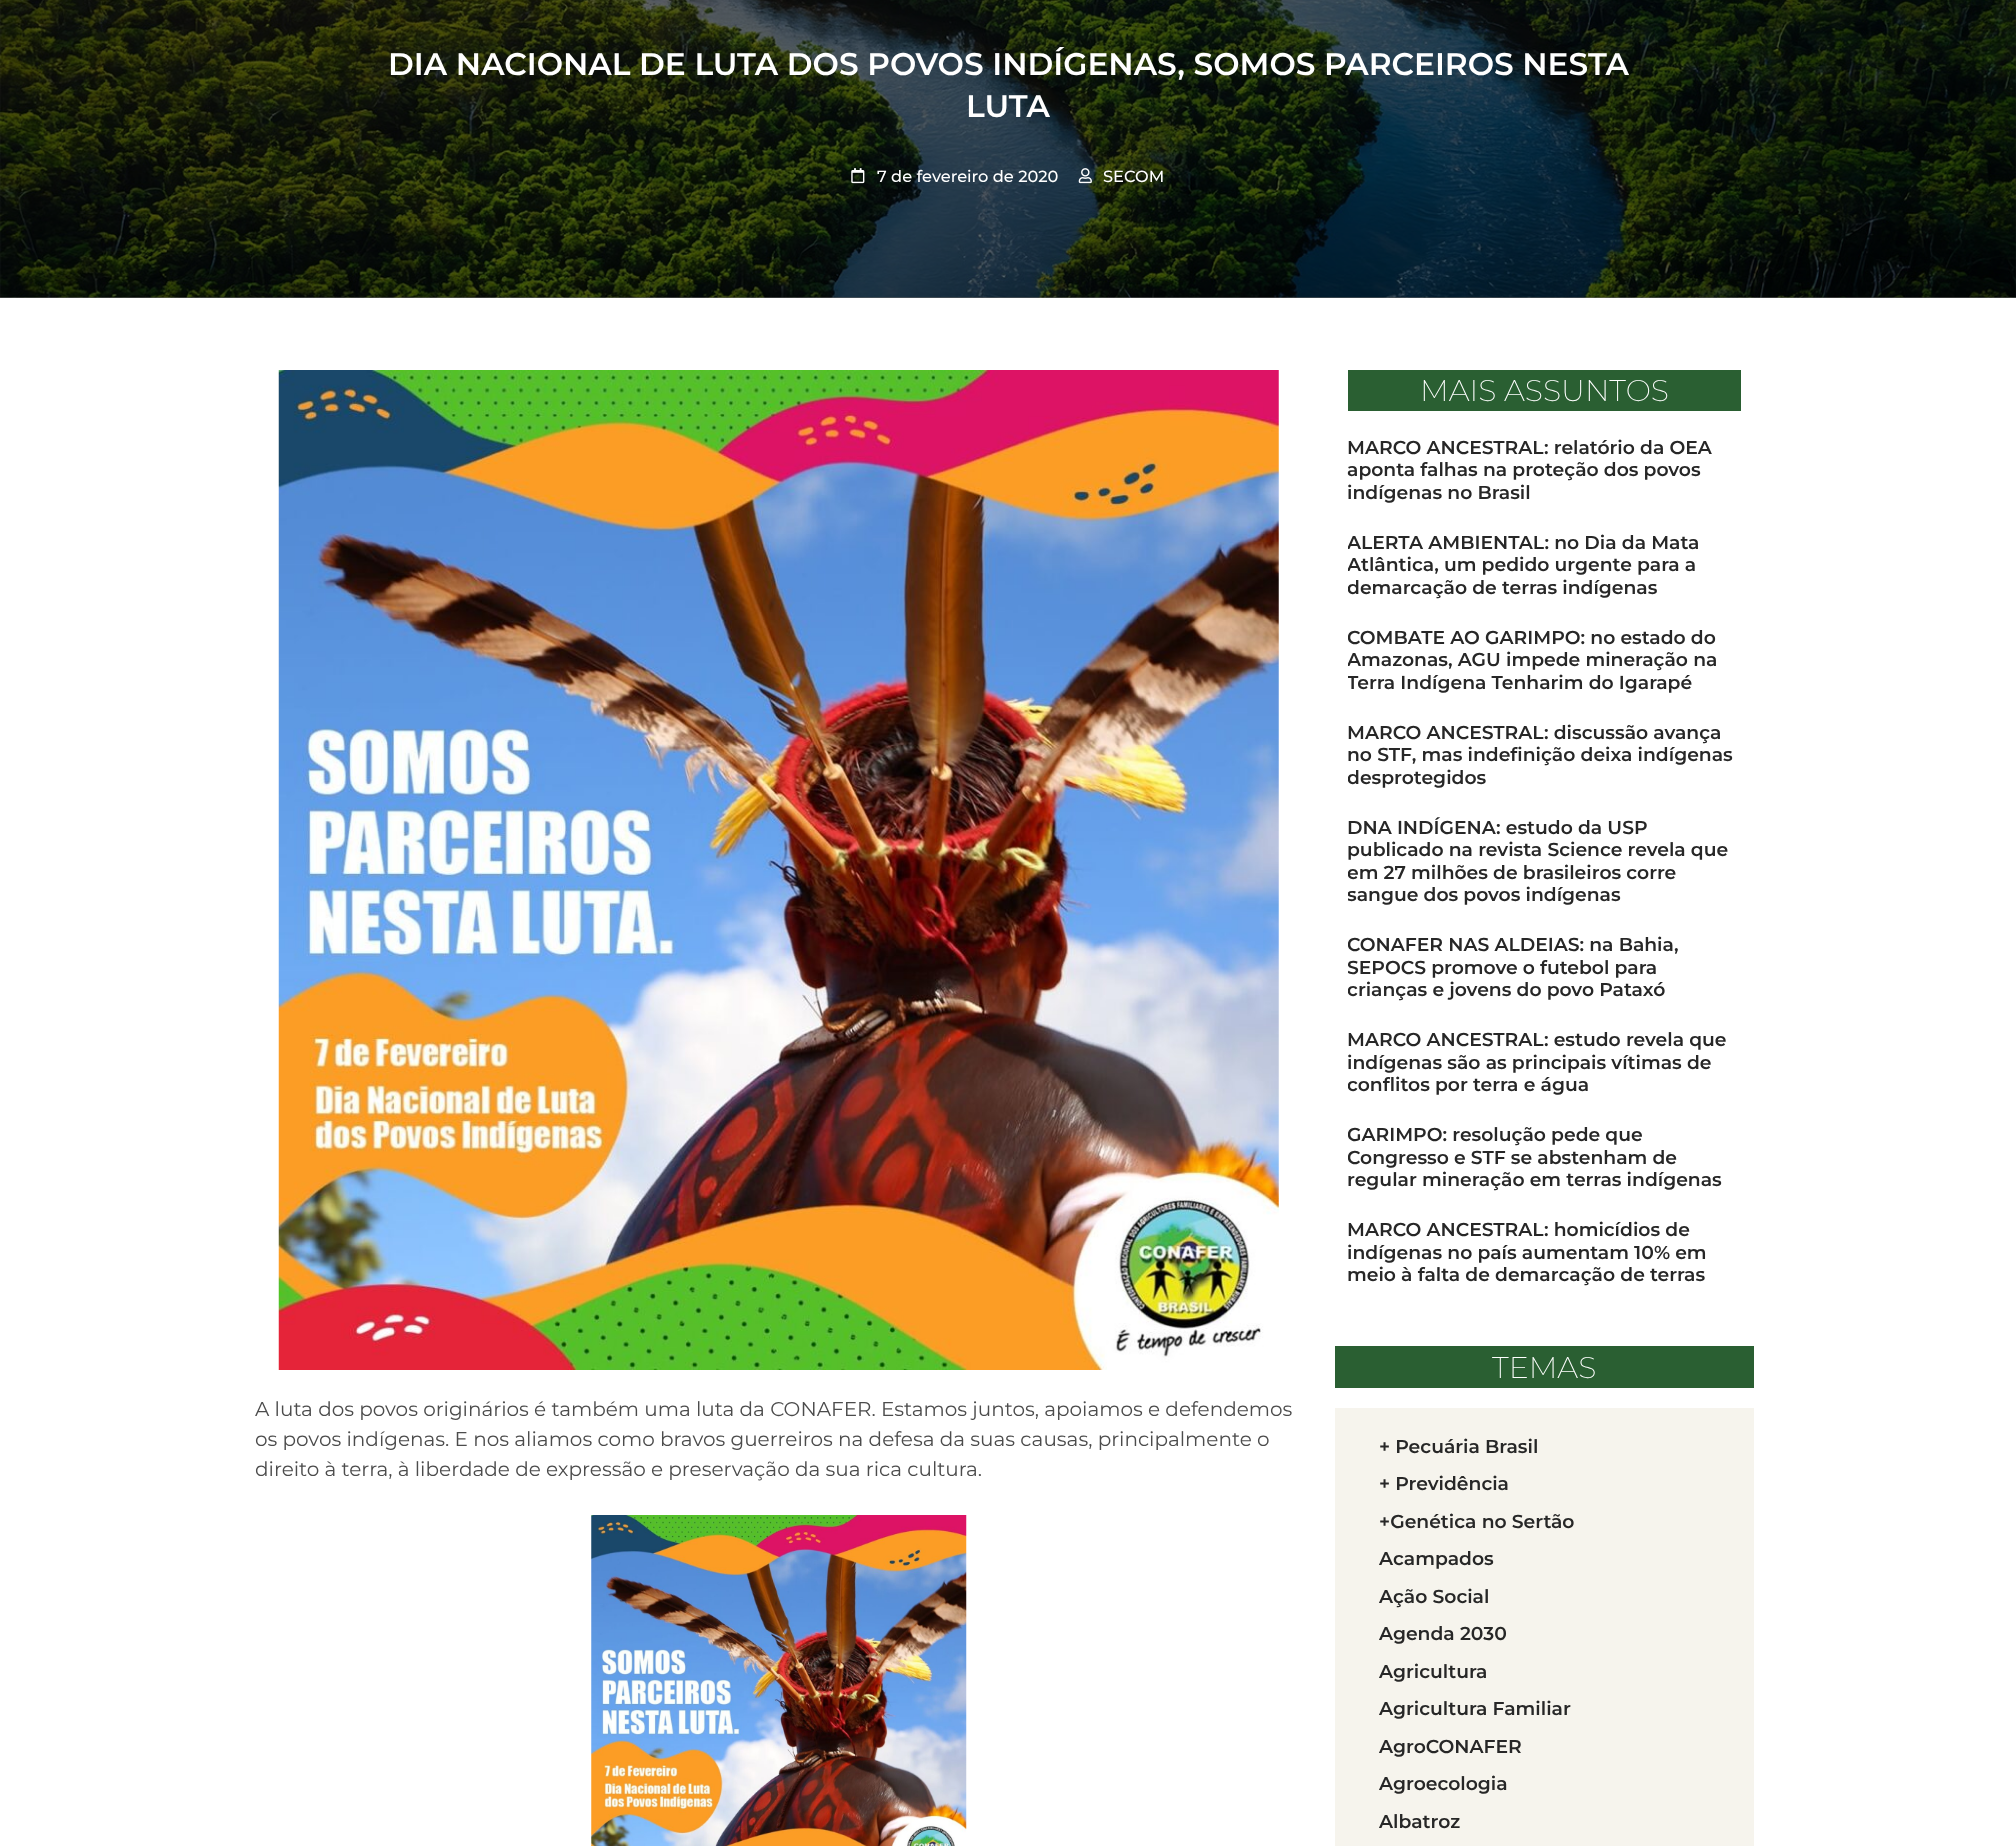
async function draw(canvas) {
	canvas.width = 2016;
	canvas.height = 1846;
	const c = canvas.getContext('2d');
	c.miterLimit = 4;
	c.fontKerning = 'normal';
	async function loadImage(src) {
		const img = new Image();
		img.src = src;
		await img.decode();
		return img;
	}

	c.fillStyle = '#fff';
	c.fillRect(0, 0, 2016, 1846);
	c.fillStyle = '#696969';
	c.fillRect(0, 297, 2016, 1);
	c.drawImage(await loadImage('img1.png'), 0, 0, 2016, 298);
	c.font = '600 31.25px Montserrat';
	c.fillStyle = '#fff';
	c.fillText('DIA NACIONAL DE LUTA DOS POVOS INDÍGENAS, SOMOS PARCEIROS NESTA', 388, 75);
	c.fillText('LUTA', 966, 117);
	c.drawImage(await loadImage('img2.png'), 851, 168, 14, 16);
	c.font = '500 16.25px Montserrat';
	c.fillText('7 de fevereiro de 2020', 877, 182);
	c.drawImage(await loadImage('img3.png'), 1078, 168, 14, 16);
	c.fillText('SECOM', 1103, 182);
	c.drawImage(await loadImage('img4.png'), 278, 370, 1001, 1000);
	c.font = '20px Montserrat';
	c.fillStyle = '#4c4c4c';
	for (const [text, x, y] of [
		['A luta dos povos originários é também uma luta da CONAFER. Estamos juntos, apoiamos e defendemos', 255, 1416],
		['os povos indígenas. E nos aliamos como bravos guerreiros na defesa da suas causas, principalmente o', 255, 1446],
		['direito à terra, à liberdade de expressão e preservação da sua rica cultura.', 255, 1476],
	]) {
		c.fillText(text, x, y);
	}
	c.drawImage(await loadImage('img5.png'), 591, 1515, 376, 331);
	c.fillStyle = '#2a5f32';
	c.fillRect(1348, 370, 393, 41);
	c.font = '200 30px Montserrat';
	c.fillStyle = '#fff';
	c.fillText('MAIS ASSUNTOS', 1420, 401);
	c.font = '600 18.75px Montserrat';
	c.fillStyle = '#272727';
	for (const [text, x, y] of [
		['MARCO ANCESTRAL: relatório da OEA', 1347, 454],
		['aponta falhas na proteção dos povos', 1347, 476],
		['indígenas no Brasil', 1347, 499],
	]) {
		c.fillText(text, x, y);
	}
	c.save();
	c.beginPath();
	c.rect(1348, 531, 393, 68);
	c.clip();
	for (const [text, x, y] of [
		['ALERTA AMBIENTAL: no Dia da Mata', 1347, 549],
		['Atlântica, um pedido urgente para a', 1347, 571],
		['demarcação de terras indígenas', 1347, 594],
	]) {
		c.fillText(text, x, y);
	}
	c.restore();
	c.save();
	c.beginPath();
	c.rect(1348, 626, 393, 68);
	c.clip();
	for (const [text, x, y] of [
		['COMBATE AO GARIMPO: no estado do', 1347, 644],
		['Amazonas, AGU impede mineração na', 1347, 666],
		['Terra Indígena Tenharim do Igarapé', 1347, 689],
	]) {
		c.fillText(text, x, y);
	}
	c.restore();
	c.fillText('MARCO ANCESTRAL: discussão avança', 1347, 739);
	c.fillText('no STF, mas indefinição deixa indígenas', 1347, 761);
	c.save();
	c.beginPath();
	c.rect(1348, 721, 393, 68);
	c.clip();
	c.fillText('desprotegidos', 1347, 784);
	c.restore();
	c.fillText('DNA INDÍGENA: estudo da USP', 1347, 834);
	c.fillText('publicado na revista Science revela que', 1347, 856);
	c.save();
	c.beginPath();
	c.rect(1348, 816, 393, 90);
	c.clip();
	c.fillText('em 27 milhões de brasileiros corre', 1347, 879);
	c.fillText('sangue dos povos indígenas', 1347, 901);
	c.restore();
	c.save();
	c.beginPath();
	c.rect(1348, 934, 393, 67);
	c.clip();
	for (const [text, x, y] of [
		['CONAFER NAS ALDEIAS: na Bahia,', 1347, 951],
		['SEPOCS promove o futebol para', 1347, 974],
		['crianças e jovens do povo Pataxó', 1347, 996],
	]) {
		c.fillText(text, x, y);
	}
	c.restore();
	c.fillText('MARCO ANCESTRAL: estudo revela que', 1347, 1046);
	c.fillText('indígenas são as principais vítimas de', 1347, 1069);
	c.save();
	c.beginPath();
	c.rect(1348, 1029, 393, 67);
	c.clip();
	c.fillText('conflitos por terra e água', 1347, 1091);
	c.restore();
	c.save();
	c.beginPath();
	c.rect(1348, 1124, 393, 67);
	c.clip();
	c.fillText('GARIMPO: resolução pede que', 1347, 1141);
	c.fillText('Congresso e STF se abstenham de', 1347, 1164);
	c.restore();
	for (const [text, x, y] of [
		['regular mineração em terras indígenas', 1347, 1186],
		['MARCO ANCESTRAL: homicídios de', 1347, 1236],
		['indígenas no país aumentam 10% em', 1347, 1259],
		['meio à falta de demarcação de terras', 1347, 1281],
	]) {
		c.fillText(text, x, y);
	}
	c.fillStyle = '#2a5f32';
	c.fillRect(1335, 1346, 419, 42);
	c.font = '200 30px Montserrat';
	c.fillStyle = '#fff';
	c.fillText('TEMAS', 1492, 1378);
	c.fillStyle = '#f6f4ed';
	c.fillRect(1335, 1408, 419, 438);
	c.font = '600 18.75px Montserrat';
	c.fillStyle = '#272727';
	for (const [text, x, y] of [
		['+ Pecuária Brasil', 1379, 1453],
		['+ Previdência', 1379, 1490],
		['+Genética no Sertão', 1379, 1528],
		['Acampados', 1379, 1565],
		['Ação Social', 1379, 1603],
		['Agenda 2030', 1379, 1640],
		['Agricultura', 1379, 1678],
		['Agricultura Familiar', 1379, 1715],
		['AgroCONAFER', 1379, 1753],
		['Agroecologia', 1379, 1790],
		['Albatroz', 1379, 1828],
	]) {
		c.fillText(text, x, y);
	}
}

draw(document.querySelector('canvas'));
